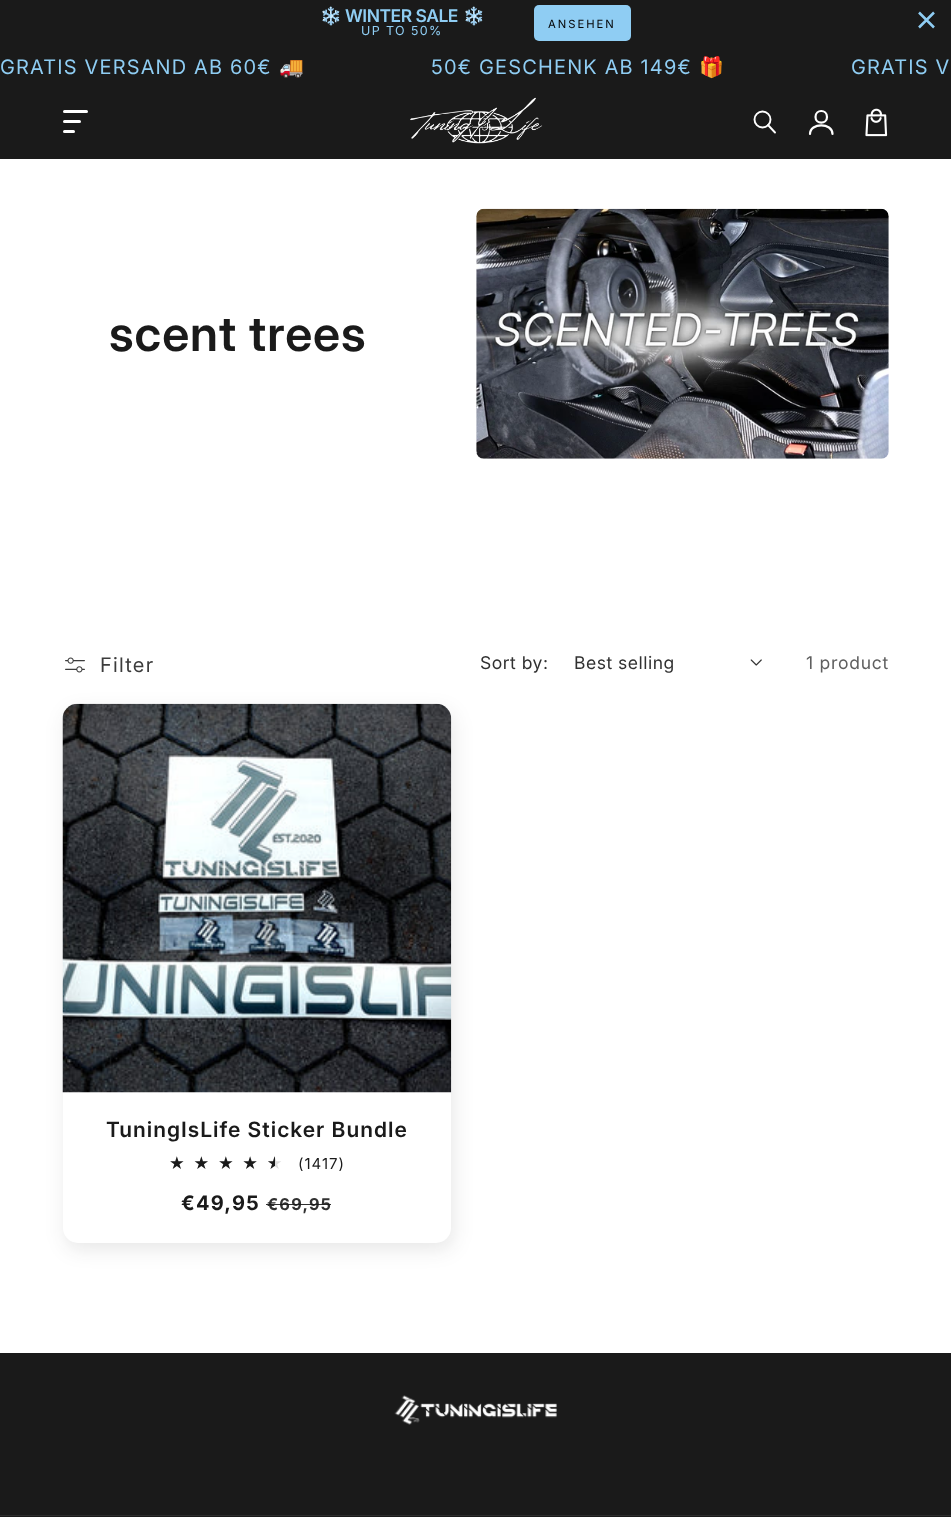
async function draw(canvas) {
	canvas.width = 951;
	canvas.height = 1517;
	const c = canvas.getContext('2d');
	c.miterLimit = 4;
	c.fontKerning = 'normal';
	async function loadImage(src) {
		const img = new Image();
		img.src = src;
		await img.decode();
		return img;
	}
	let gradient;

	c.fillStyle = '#fff';
	c.fillRect(0, 0, 951, 1517);
	c.fillStyle = '#1a1a1a';
	c.fillRect(0, 0, 951, 159);
	c.letterSpacing = '-0.5px';
	c.font = 'bold 17.5px Noto Color Emoji';
	c.fillStyle = '#8fcdf3';
	c.fillText('❄️', 320, 22);
	c.font = '600 17.5px "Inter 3"';
	c.fillText('WINTER SALE', 345, 22);
	c.font = 'bold 17.5px Noto Color Emoji';
	c.fillText('❄️', 463, 22);
	c.letterSpacing = '1.4px';
	c.font = '12.5px Inter';
	c.fillText('UP TO 50%', 361, 35);
	c.beginPath();
	c.roundRect(534, 5, 97, 36, 5);
	c.fill();
	c.letterSpacing = '2px';
	c.font = '11.25px Inter';
	c.fillStyle = '#030405';
	c.fillText('ANSEHEN', 548, 28);
	c.beginPath();
	c.moveTo(934, 12.5);
	c.lineTo(919, 27.5);
	c.moveTo(934, 27.5);
	c.lineTo(919, 12.5);
	c.strokeStyle = '#8fcdf3';
	c.lineWidth = 2.5;
	c.stroke();
	c.letterSpacing = '1.2px';
	c.font = '20px "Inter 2"';
	c.fillStyle = '#8fcdf3';
	c.fillText('GRATIS VERSAND AB 60€', 0, 74);
	c.font = '20px Noto Color Emoji';
	c.fillText('🚚', 279, 74);
	c.font = '20px "Inter 2"';
	c.fillText('50€ GESCHENK AB 149€', 431, 74);
	c.font = '20px Noto Color Emoji';
	c.fillText('🎁', 699, 74);
	c.font = '20px "Inter 2"';
	c.fillText('GRATIS V', 851, 74);
	c.fillStyle = '#fff';
	c.beginPath();
	c.roundRect(63, 110, 25, 3, 1.5);
	c.fill();
	c.beginPath();
	c.roundRect(63, 120, 18, 3, 1.5);
	c.fill();
	c.beginPath();
	c.roundRect(63, 130, 12, 3, 1.5);
	c.fill();
	c.drawImage(await loadImage('img1.png'), 410, 97, 133, 47);
	c.beginPath();
	c.arc(762.5, 119.5, 8, 0, 2 * Math.PI);
	c.strokeStyle = '#fff';
	c.lineWidth = 1.9;
	c.stroke();
	c.beginPath();
	c.moveTo(775, 132.5);
	c.lineTo(768, 125);
	c.lineCap = 'round';
	c.lineJoin = 'round';
	c.stroke();
	c.beginPath();
	c.moveTo(827, 117);
	c.bezierCurveTo(827, 124.5, 815.5, 124.5, 815.5, 117);
	c.bezierCurveTo(815.5, 109, 827, 109, 827, 117);
	c.closePath();
	c.moveTo(810, 134);
	c.bezierCurveTo(810, 122.5, 832.5, 122.5, 832.5, 134);
	c.lineWidth = 2.2;
	c.stroke();
	c.drawImage(await loadImage('img2.png'), 865, 108, 23, 29);
	c.letterSpacing = '1px';
	c.font = '600 48.75px Inter';
	c.fillStyle = '#1a1a1a';
	c.fillText('scent trees', 109, 351);
	c.drawImage(await loadImage('img3.png'), 476, 208, 413, 251);
	c.drawImage(await loadImage('img4.png'), 65, 657, 20, 16);
	c.letterSpacing = '1.25px';
	c.font = '20px "Inter 2"';
	c.fillStyle = '#3c3c3c';
	c.fillText('Filter', 100, 672);
	c.letterSpacing = '0.5px';
	c.font = '17.5px Inter';
	c.fillStyle = '#313131';
	c.fillText('Sort by:', 480, 669);
	c.fillText('Best selling', 574, 669);
	c.drawImage(await loadImage('img5.png'), 750, 659, 12, 7);
	c.letterSpacing = '0.75px';
	c.fillStyle = '#5f5f5f';
	c.fillText('1 product', 806, 669);
	c.fillStyle = '#1a1a1a1a';
	c.filter = 'blur(9.5px)';
	c.beginPath();
	c.roundRect(65, 711, 389, 539, 15);
	c.fill();
	c.filter = 'none';
	c.fillStyle = '#fff';
	c.beginPath();
	c.roundRect(63, 704, 388, 539, 15);
	c.fill();
	c.drawImage(await loadImage('img6.png'), 62, 703, 390, 390);
	c.letterSpacing = '1px';
	c.font = '600 21.1px "Inter 2"';
	c.fillStyle = '#1a1a1a';
	c.fillText('TuningIsLife Sticker Bundle', 106, 1137);
	c.letterSpacing = '8.75px';
	c.font = '17.5px DejaVu Sans';
	gradient = c.createLinearGradient(169, 1164, 291, 1164);
	gradient.addColorStop(0.87, '#1a1a1a');
	gradient.addColorStop(0.87, '#ddd');
	c.fillStyle = gradient;
	c.fillText('★★★★★', 169, 1169);
	c.letterSpacing = '1px';
	c.font = '15px Inter';
	c.fillStyle = '#1a1a1a';
	c.fillText('(1417)', 298, 1169);
	c.letterSpacing = '1.25px';
	c.font = 'bold 20px Inter';
	c.fillText('€49,95', 181, 1210);
	c.font = 'bold 16.25px Inter';
	c.fillStyle = '#313131';
	c.fillText('€69,95', 267, 1210);
	c.fillStyle = '#1a1a1ae6';
	c.fillRect(266, 1204, 65, 1);
	c.fillStyle = '#1a1a1a';
	c.fillRect(0, 1353, 951, 164);
	c.drawImage(await loadImage('img7.png'), 394, 1395, 163, 30);
	c.fillStyle = '#2c2c2c';
	c.fillRect(0, 1515, 951, 1);
}

draw(document.querySelector('canvas'));
